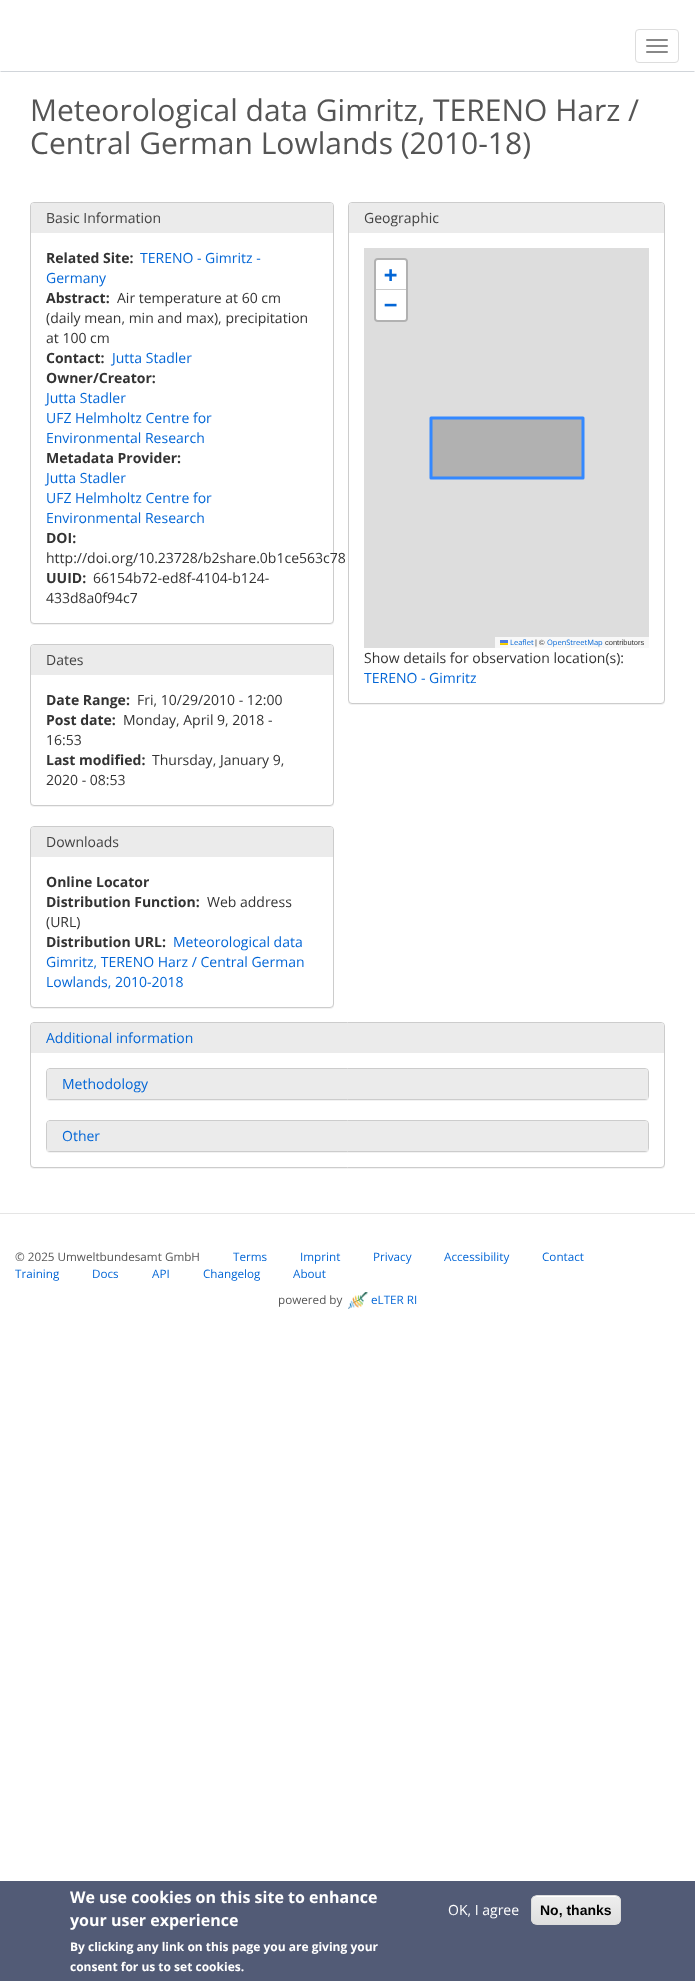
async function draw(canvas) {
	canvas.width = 695;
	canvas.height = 1981;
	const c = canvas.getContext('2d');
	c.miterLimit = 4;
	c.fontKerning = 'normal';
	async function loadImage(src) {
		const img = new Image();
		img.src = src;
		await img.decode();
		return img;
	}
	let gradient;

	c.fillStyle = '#fff';
	c.fillRect(0, 0, 695, 1981);
	c.fillStyle = '#d1d5da';
	c.beginPath();
	c.moveTo(695, 72);
	c.lineTo(0, 72);
	c.lineTo(1, 71);
	c.lineTo(694, 71);
	c.closePath();
	c.fill();
	c.beginPath();
	c.roundRect(635.5, 29.5, 43, 33, 3.5);
	c.strokeStyle = '#ddd';
	c.stroke();
	c.fillStyle = '#888';
	c.beginPath();
	c.roundRect(646, 39, 22, 2, 1);
	c.fill();
	c.beginPath();
	c.roundRect(646, 45, 22, 2, 1);
	c.fill();
	c.beginPath();
	c.roundRect(646, 51, 22, 2, 1);
	c.fill();
	c.font = '30px Open Sans';
	c.fillStyle = '#555';
	c.fillText('Meteorological data Gimritz, TERENO Harz /', 30, 121);
	c.fillText('Central German Lowlands (2010-18)', 30, 154);
	c.fillStyle = '#0000000d';
	c.filter = 'blur(0.5px)';
	c.beginPath();
	c.roundRect(30, 203, 304, 422, 4);
	c.fill();
	c.filter = 'none';
	c.fillStyle = '#fff';
	c.beginPath();
	c.roundRect(30.5, 202.5, 303, 421, 3.5);
	c.fill();
	c.strokeStyle = '#ccc';
	c.stroke();
	c.fillStyle = '#ebebeb';
	c.beginPath();
	c.roundRect(31, 203, 302, 30, [3, 3, 0, 0]);
	c.fill();
	c.font = '14px Open Sans';
	c.fillStyle = '#424242';
	c.fillText('Basic Information', 46, 223);
	c.fillStyle = '#0366d6';
	c.fillText('TERENO - Gimritz -', 140, 263);
	c.fillText('Germany', 46, 283);
	c.font = 'bold 14px Open Sans';
	c.fillStyle = '#333';
	c.fillText('Related Site:', 46, 263);
	c.fillText('Abstract:', 46, 303);
	c.font = '14px Open Sans';
	for (const [text, x, y] of [
		['Air temperature at 60 cm', 117, 303],
		['(daily mean, min and max), precipitation', 46, 323],
		['at 100 cm', 46, 343],
	]) {
		c.fillText(text, x, y);
	}
	c.font = 'bold 14px Open Sans';
	c.fillText('Contact:', 46, 363);
	c.font = '14px Open Sans';
	c.fillStyle = '#0366d6';
	c.fillText('Jutta Stadler', 112, 363);
	c.font = 'bold 14px Open Sans';
	c.fillStyle = '#333';
	c.fillText('Owner/Creator:', 46, 383);
	c.font = '14px Open Sans';
	c.fillStyle = '#0366d6';
	for (const [text, x, y] of [
		['Jutta Stadler', 46, 403],
		['UFZ Helmholtz Centre for', 46, 423],
		['Environmental Research', 46, 443],
	]) {
		c.fillText(text, x, y);
	}
	c.font = 'bold 14px Open Sans';
	c.fillStyle = '#333';
	c.fillText('Metadata Provider:', 46, 463);
	c.font = '14px Open Sans';
	c.fillStyle = '#0366d6';
	for (const [text, x, y] of [
		['Jutta Stadler', 46, 483],
		['UFZ Helmholtz Centre for', 46, 503],
		['Environmental Research', 46, 523],
	]) {
		c.fillText(text, x, y);
	}
	c.font = 'bold 14px Open Sans';
	c.fillStyle = '#333';
	c.fillText('DOI:', 46, 543);
	c.font = '14px Open Sans';
	for (const [text, x, y] of [
		['http://doi.org/10.23728/b2share.0b1ce563c78', 46, 563],
		['66154b72-ed8f-4104-b124-', 93, 583],
		['433d8a0f94c7', 46, 603],
	]) {
		c.fillText(text, x, y);
	}
	c.font = 'bold 14px Open Sans';
	c.fillText('UUID:', 46, 583);
	c.fillStyle = '#0000000d';
	c.filter = 'blur(0.5px)';
	c.beginPath();
	c.roundRect(30, 645, 304, 162, 4);
	c.fill();
	c.filter = 'none';
	c.fillStyle = '#fff';
	c.beginPath();
	c.roundRect(30.5, 644.5, 303, 161, 3.5);
	c.fill();
	c.stroke();
	c.fillStyle = '#ebebeb';
	c.beginPath();
	c.roundRect(31, 645, 302, 30, [3, 3, 0, 0]);
	c.fill();
	c.font = '14px Open Sans';
	c.fillStyle = '#424242';
	c.fillText('Dates', 46, 665);
	c.font = 'bold 14px Open Sans';
	c.fillStyle = '#333';
	c.fillText('Date Range:', 46, 705);
	c.font = '14px Open Sans';
	c.fillText('Fri, 10/29/2010 - 12:00', 137, 705);
	c.font = 'bold 14px Open Sans';
	c.fillText('Post date:', 46, 725);
	c.font = '14px Open Sans';
	for (const [text, x, y] of [
		['Monday, April 9, 2018 -', 123, 725],
		['16:53', 46, 745],
		['Thursday, January 9,', 152, 765],
		['2020 - 08:53', 46, 785],
	]) {
		c.fillText(text, x, y);
	}
	c.font = 'bold 14px Open Sans';
	c.fillText('Last modified:', 46, 765);
	c.fillStyle = '#0000000d';
	c.filter = 'blur(0.5px)';
	c.beginPath();
	c.roundRect(30, 827, 304, 182, 4);
	c.fill();
	c.filter = 'none';
	c.fillStyle = '#fff';
	c.beginPath();
	c.roundRect(30.5, 826.5, 303, 181, 3.5);
	c.fill();
	c.stroke();
	c.fillStyle = '#ebebeb';
	c.beginPath();
	c.roundRect(31, 827, 302, 30, [3, 3, 0, 0]);
	c.fill();
	c.font = '14px Open Sans';
	c.fillStyle = '#424242';
	c.fillText('Downloads', 46, 847);
	c.font = 'bold 14px Open Sans';
	c.fillStyle = '#333';
	c.fillText('Online Locator', 46, 887);
	c.font = '14px Open Sans';
	c.fillText('Web address', 207, 907);
	c.fillText('(URL)', 46, 927);
	c.font = 'bold 14px Open Sans';
	c.fillText('Distribution Function:', 46, 907);
	c.font = '14px Open Sans';
	c.fillStyle = '#0366d6';
	for (const [text, x, y] of [
		['Meteorological data', 173, 947],
		['Gimritz, TERENO Harz / Central German', 46, 967],
		['Lowlands, 2010-2018', 46, 987],
	]) {
		c.fillText(text, x, y);
	}
	c.font = 'bold 14px Open Sans';
	c.fillStyle = '#333';
	c.fillText('Distribution URL:', 46, 947);
	c.fillStyle = '#0000000d';
	c.filter = 'blur(0.5px)';
	c.beginPath();
	c.roundRect(348, 203, 317, 502, 4);
	c.fill();
	c.filter = 'none';
	c.fillStyle = '#fff';
	c.beginPath();
	c.roundRect(348.5, 202.5, 316, 501, 3.5);
	c.fill();
	c.stroke();
	c.fillStyle = '#ebebeb';
	c.beginPath();
	c.roundRect(349, 203, 315, 30, [3, 3, 0, 0]);
	c.fill();
	c.font = '14px Open Sans';
	c.fillStyle = '#424242';
	c.fillText('Geographic', 364, 223);
	c.fillStyle = '#ddd';
	c.fillRect(364, 248, 285, 400);
	c.beginPath();
	c.roundRect(375, 259, 32, 62, 3);
	c.strokeStyle = '#b1b1b1';
	c.lineWidth = 2;
	c.stroke();
	c.fillStyle = '#fff';
	c.beginPath();
	c.roundRect(376, 260, 30, 30, [2, 2, 0, 0]);
	c.fill();
	c.fillStyle = '#ccc';
	c.fillRect(376, 289, 30, 1);
	c.font = 'bold 22px DejaVu Sans Mono';
	c.fillStyle = '#0366d6';
	c.fillText('+', 384, 282);
	c.fillStyle = '#fff';
	c.beginPath();
	c.roundRect(376, 290, 30, 30, [0, 0, 2, 2]);
	c.fill();
	c.fillStyle = '#0366d6';
	c.fillText('−', 384, 312);
	c.fillStyle = '#f8f8f8';
	c.fillRect(495, 637, 154, 11);
	c.drawImage(await loadImage('img1.png'), 500, 640, 8, 5);
	c.font = '7.5px Open Sans';
	c.fillStyle = '#0366d6';
	c.fillText('Leaflet', 510, 645);
	c.font = '7.5px Liberation Sans';
	c.fillStyle = '#333';
	c.fillText('| ©', 535, 645);
	c.font = '7.5px Open Sans';
	c.fillStyle = '#0366d6';
	c.fillText('OpenStreetMap', 547, 645);
	c.font = '7.5px Liberation Sans';
	c.fillStyle = '#333';
	c.fillText('contributors', 605, 645);
	c.fillStyle = '#b1b1b1';
	c.fillRect(432, 419, 150, 58);
	c.beginPath();
	c.moveTo(431, 418);
	c.lineTo(431, 478);
	c.lineTo(583, 478);
	c.lineTo(583, 418);
	c.closePath();
	c.strokeStyle = '#38f';
	c.lineWidth = 3;
	c.lineCap = 'round';
	c.lineJoin = 'round';
	c.stroke();
	c.font = '14px Open Sans';
	c.fillStyle = '#333';
	c.fillText('Show details for observation location(s):', 364, 663);
	c.fillStyle = '#0366d6';
	c.fillText('TERENO - Gimritz', 364, 683);
	c.fillStyle = '#0000000d';
	c.filter = 'blur(0.5px)';
	c.beginPath();
	c.roundRect(30, 1023, 635, 146, 4);
	c.fill();
	c.filter = 'none';
	c.fillStyle = '#fff';
	c.beginPath();
	c.roundRect(30.5, 1022.5, 634, 145, 3.5);
	c.fill();
	c.strokeStyle = '#ccc';
	c.lineWidth = 1;
	c.lineJoin = 'miter';
	c.stroke();
	c.fillStyle = '#ebebeb';
	c.beginPath();
	c.roundRect(31, 1023, 633, 30, [3, 3, 0, 0]);
	c.fill();
	c.fillStyle = '#0366d6';
	c.fillText('Additional information', 46, 1043);
	c.fillStyle = '#0000000d';
	c.filter = 'blur(0.5px)';
	c.beginPath();
	c.roundRect(46, 1069, 603, 32, 4);
	c.fill();
	c.filter = 'none';
	c.beginPath();
	c.roundRect(46.5, 1068.5, 602, 31, 3.5);
	c.stroke();
	c.fillStyle = '#ebebeb';
	c.beginPath();
	c.roundRect(47, 1069, 601, 30, [3, 3, 0, 0]);
	c.fill();
	c.fillStyle = '#0366d6';
	c.fillText('Methodology', 62, 1089);
	c.fillStyle = '#0000000d';
	c.filter = 'blur(0.5px)';
	c.beginPath();
	c.roundRect(46, 1121, 603, 32, 4);
	c.fill();
	c.filter = 'none';
	c.beginPath();
	c.roundRect(46.5, 1120.5, 602, 31, 3.5);
	c.stroke();
	c.fillStyle = '#ebebeb';
	c.beginPath();
	c.roundRect(47, 1121, 601, 30, [3, 3, 0, 0]);
	c.fill();
	c.fillStyle = '#0366d6';
	c.fillText('Other', 62, 1141);
	c.fillStyle = '#e5e5e5';
	c.fillRect(0, 1213, 695, 1);
	c.font = '11.7px Open Sans';
	c.fillStyle = '#555';
	c.fillText('© 2025 Umweltbundesamt GmbH', 15, 1261);
	c.fillStyle = '#0366d6';
	for (const [text, x, y] of [
		['Terms', 233, 1261],
		['Imprint', 300, 1261],
		['Privacy', 373, 1261],
		['Accessibility', 444, 1261],
		['Contact', 542, 1261],
		['Training', 15, 1278],
		['Docs', 92, 1278],
		['API', 152, 1278],
		['Changelog', 203, 1278],
		['About', 293, 1278],
	]) {
		c.fillText(text, x, y);
	}
	c.fillStyle = '#555';
	c.fillText('powered by', 278, 1304);
	c.drawImage(await loadImage('img2.png'), 348, 1292, 20, 17);
	c.fillStyle = '#0366d6';
	c.fillText('eLTER RI', 371, 1304);
	c.fillStyle = '#525b76';
	c.fillRect(0, 1881, 695, 100);
	c.font = 'bold 16px Open Sans';
	c.fillStyle = '#fff';
	c.fillText('We use cookies on this site to enhance', 70, 1903);
	c.fillText('your user experience', 70, 1926);
	c.font = 'bold 12px Open Sans';
	c.fillText('By clicking any link on this page you are giving your', 70, 1951);
	c.fillText('consent for us to set cookies.', 70, 1971);
	c.font = '14px Open Sans';
	c.fillText('OK, I agree', 448, 1915);
	c.save();
	c.beginPath();
	c.roundRect(531, 1895, 90, 30, 6);
	c.clip();
	gradient = c.createLinearGradient(576, 1896, 576, 1924);
	gradient.addColorStop(0.05, '#ededed');
	gradient.addColorStop(1, '#dfdfdf');
	c.fillStyle = gradient;
	c.fillRect(531, 1896, 90, 28);
	c.restore();
	c.beginPath();
	c.moveTo(537, 1897);
	c.lineTo(615, 1897);
	c.bezierCurveTo(618, 1897, 620, 1899, 620, 1902);
	c.bezierCurveTo(620, 1893, 608, 1896, 602, 1896);
	c.lineTo(550, 1896);
	c.bezierCurveTo(544, 1896, 532, 1893, 532, 1902);
	c.bezierCurveTo(532, 1899, 534, 1897, 537, 1897);
	c.closePath();
	c.fill();
	c.beginPath();
	c.roundRect(531.5, 1895.5, 89, 29, 5.5);
	c.strokeStyle = '#dcdcdc';
	c.stroke();
	c.font = 'bold 14px Liberation Sans';
	c.fillStyle = '#000';
	c.fillText('No, thanks', 540, 1915);
}

draw(document.querySelector('canvas'));
